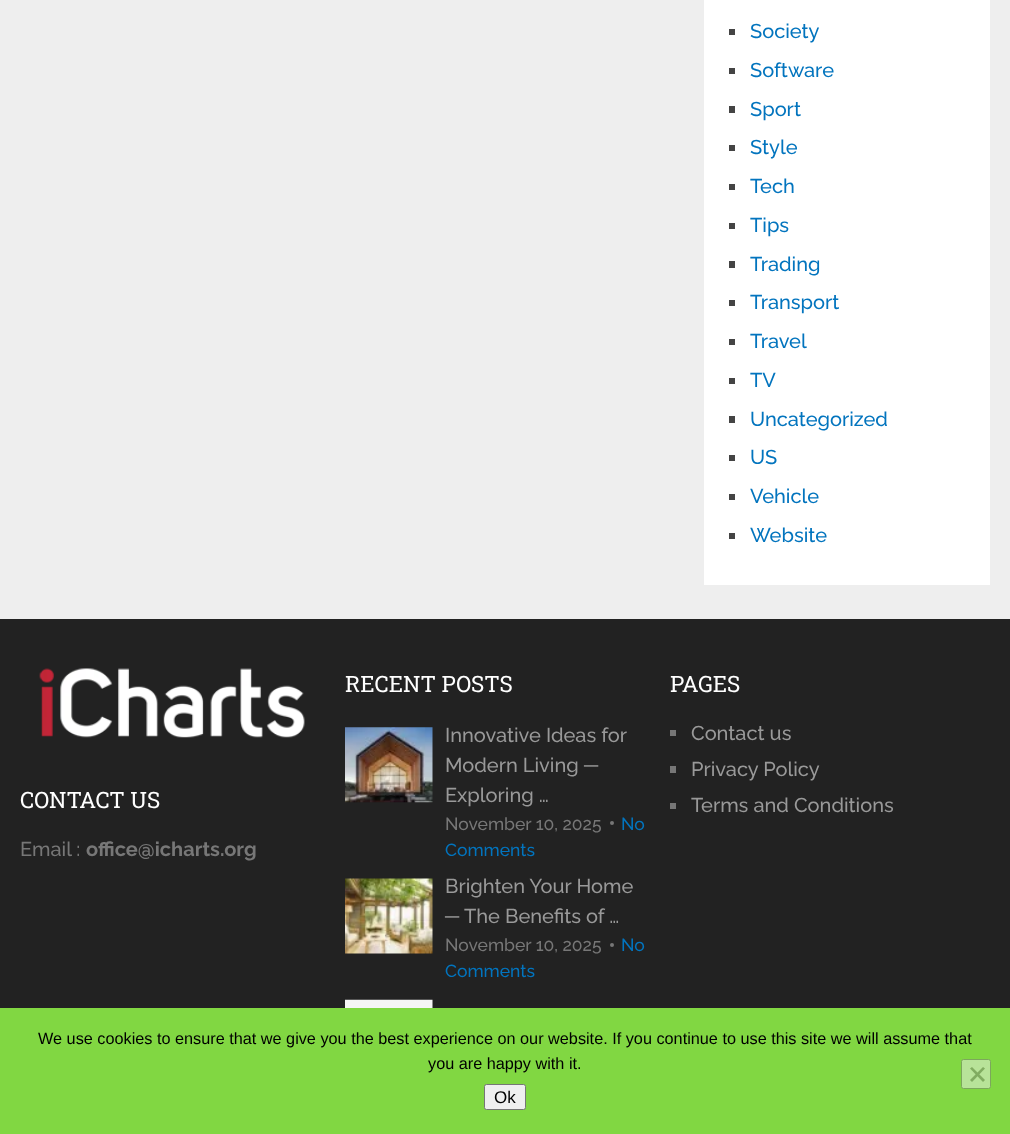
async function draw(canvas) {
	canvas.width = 1010;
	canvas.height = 1134;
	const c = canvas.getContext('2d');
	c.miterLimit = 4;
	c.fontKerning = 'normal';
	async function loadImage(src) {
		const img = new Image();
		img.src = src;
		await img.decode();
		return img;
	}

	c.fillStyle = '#eee';
	c.fillRect(0, 0, 1010, 1134);
	c.fillStyle = '#fff';
	c.fillRect(704, 0, 286, 585);
	c.fillStyle = '#444';
	c.fillRect(729, 29, 6, 6);
	c.font = '500 20px Raleway';
	c.fillStyle = '#0274be';
	c.fillText('Society', 750, 38);
	c.fillStyle = '#444';
	c.fillRect(729, 68, 6, 6);
	c.fillStyle = '#0274be';
	c.fillText('Software', 750, 77);
	c.fillStyle = '#444';
	c.fillRect(729, 106, 6, 7);
	c.fillStyle = '#0274be';
	c.fillText('Sport', 750, 116);
	c.fillStyle = '#444';
	c.fillRect(729, 145, 6, 6);
	c.fillStyle = '#0274be';
	c.fillText('Style', 750, 154);
	c.fillStyle = '#444';
	c.fillRect(729, 184, 6, 6);
	c.fillStyle = '#0274be';
	c.fillText('Tech', 750, 193);
	c.fillStyle = '#444';
	c.fillRect(729, 223, 6, 6);
	c.fillStyle = '#0274be';
	c.fillText('Tips', 750, 232);
	c.fillStyle = '#444';
	c.fillRect(729, 261, 6, 7);
	c.fillStyle = '#0274be';
	c.fillText('Trading', 750, 271);
	c.fillStyle = '#444';
	c.fillRect(729, 300, 6, 6);
	c.fillStyle = '#0274be';
	c.fillText('Transport', 750, 309);
	c.fillStyle = '#444';
	c.fillRect(729, 339, 6, 6);
	c.fillStyle = '#0274be';
	c.fillText('Travel', 750, 348);
	c.fillStyle = '#444';
	c.fillRect(729, 378, 6, 6);
	c.fillStyle = '#0274be';
	c.fillText('TV', 750, 387);
	c.fillStyle = '#444';
	c.fillRect(729, 416, 6, 7);
	c.fillStyle = '#0274be';
	c.fillText('Uncategorized', 750, 426);
	c.fillStyle = '#444';
	c.fillRect(729, 455, 6, 6);
	c.fillStyle = '#0274be';
	c.fillText('US', 750, 464);
	c.fillStyle = '#444';
	c.fillRect(729, 494, 6, 6);
	c.fillStyle = '#0274be';
	c.fillText('Vehicle', 750, 503);
	c.fillStyle = '#444';
	c.fillRect(729, 533, 6, 6);
	c.fillStyle = '#0274be';
	c.fillText('Website', 750, 542);
	c.fillStyle = '#222';
	c.fillRect(0, 619, 1010, 389);
	c.font = '22.5px Roboto Slab';
	c.fillStyle = '#fff';
	c.fillText('RECENT POSTS', 345, 692);
	c.drawImage(await loadImage('img1.png'), 345, 727, 88, 76);
	c.font = '500 20px Raleway';
	c.fillStyle = '#999';
	c.fillText('Innovative Ideas for', 445, 742);
	c.fillText('Modern Living', 445, 772);
	c.font = '20px Liberation Serif';
	c.fillText('─', 584, 772);
	c.font = '500 20px Raleway';
	c.fillText('Exploring …', 445, 802);
	c.font = '500 17.5px Raleway';
	c.fillStyle = '#777';
	c.fillText('November 10, 2025', 445, 830);
	c.beginPath();
	c.arc(612, 823, 2, 0, 2 * Math.PI);
	c.fill();
	c.fillStyle = '#0274be';
	c.fillText('No', 621, 830);
	c.fillText('Comments', 445, 856);
	c.drawImage(await loadImage('img2.png'), 345, 878, 88, 76);
	c.font = '500 20px Raleway';
	c.fillStyle = '#999';
	c.fillText('Brighten Your Home', 445, 893);
	c.font = '20px Liberation Serif';
	c.fillText('─', 445, 923);
	c.font = '500 20px Raleway';
	c.fillText('The Benefits of …', 464, 923);
	c.font = '500 17.5px Raleway';
	c.fillStyle = '#777';
	c.fillText('November 10, 2025', 445, 951);
	c.beginPath();
	c.arc(612, 945, 2, 0, 2 * Math.PI);
	c.fill();
	c.fillStyle = '#0274be';
	c.fillText('No', 621, 951);
	c.fillText('Comments', 445, 977);
	c.drawImage(await loadImage('img3.png'), 345, 999, 88, 9);
	c.font = '22.5px Roboto Slab';
	c.fillStyle = '#fff';
	c.fillText('PAGES', 670, 692);
	c.fillStyle = '#777';
	c.fillRect(670, 730, 6, 6);
	c.font = '500 20px Raleway';
	c.fillStyle = '#999';
	c.fillText('Contact us', 691, 740);
	c.fillStyle = '#777';
	c.fillRect(670, 766, 6, 7);
	c.fillStyle = '#999';
	c.fillText('Privacy Policy', 691, 776);
	c.fillStyle = '#777';
	c.fillRect(670, 803, 6, 6);
	c.fillStyle = '#999';
	c.fillText('Terms and Conditions', 691, 812);
	c.drawImage(await loadImage('img4.png'), 39, 668, 266, 70);
	c.font = '22.5px Roboto Slab';
	c.fillStyle = '#fff';
	c.fillText('CONTACT US', 20, 808);
	c.font = '500 20px Raleway';
	c.fillStyle = '#777';
	c.fillText('Email :', 20, 856);
	c.font = 'bold 20px Raleway';
	c.fillText('office@icharts.org', 86, 856);
	c.fillStyle = '#81d742';
	c.fillRect(0, 1008, 1010, 126);
	c.font = '16.25px Liberation Sans';
	c.fillStyle = '#000';
	c.fillText('We use cookies to ensure that we give you the best experience on our website. If you continue to use this site we will assume that', 38, 1044);
	c.fillText('you are happy with it.', 428, 1069);
	c.fillStyle = '#b8e399';
	c.beginPath();
	c.roundRect(961.5, 1059.5, 29, 29, 2);
	c.fill();
	c.strokeStyle = '#7ca75c';
	c.stroke();
	c.fillStyle = '#81ac61';
	c.beginPath();
	c.moveTo(983, 1067);
	c.lineTo(985, 1068.5);
	c.lineTo(972, 1082);
	c.lineTo(970, 1080);
	c.closePath();
	c.fill();
	c.beginPath();
	c.moveTo(970, 1068.5);
	c.lineTo(972, 1067);
	c.lineTo(985, 1080);
	c.lineTo(983, 1082);
	c.closePath();
	c.fill();
	c.fillStyle = '#efefef';
	c.beginPath();
	c.roundRect(484.5, 1084.5, 41, 25, 2);
	c.fill();
	c.strokeStyle = '#767676';
	c.stroke();
	c.font = '17px Liberation Sans';
	c.fillStyle = '#000';
	c.fillText('Ok', 494, 1103);
}

draw(document.querySelector('canvas'));
